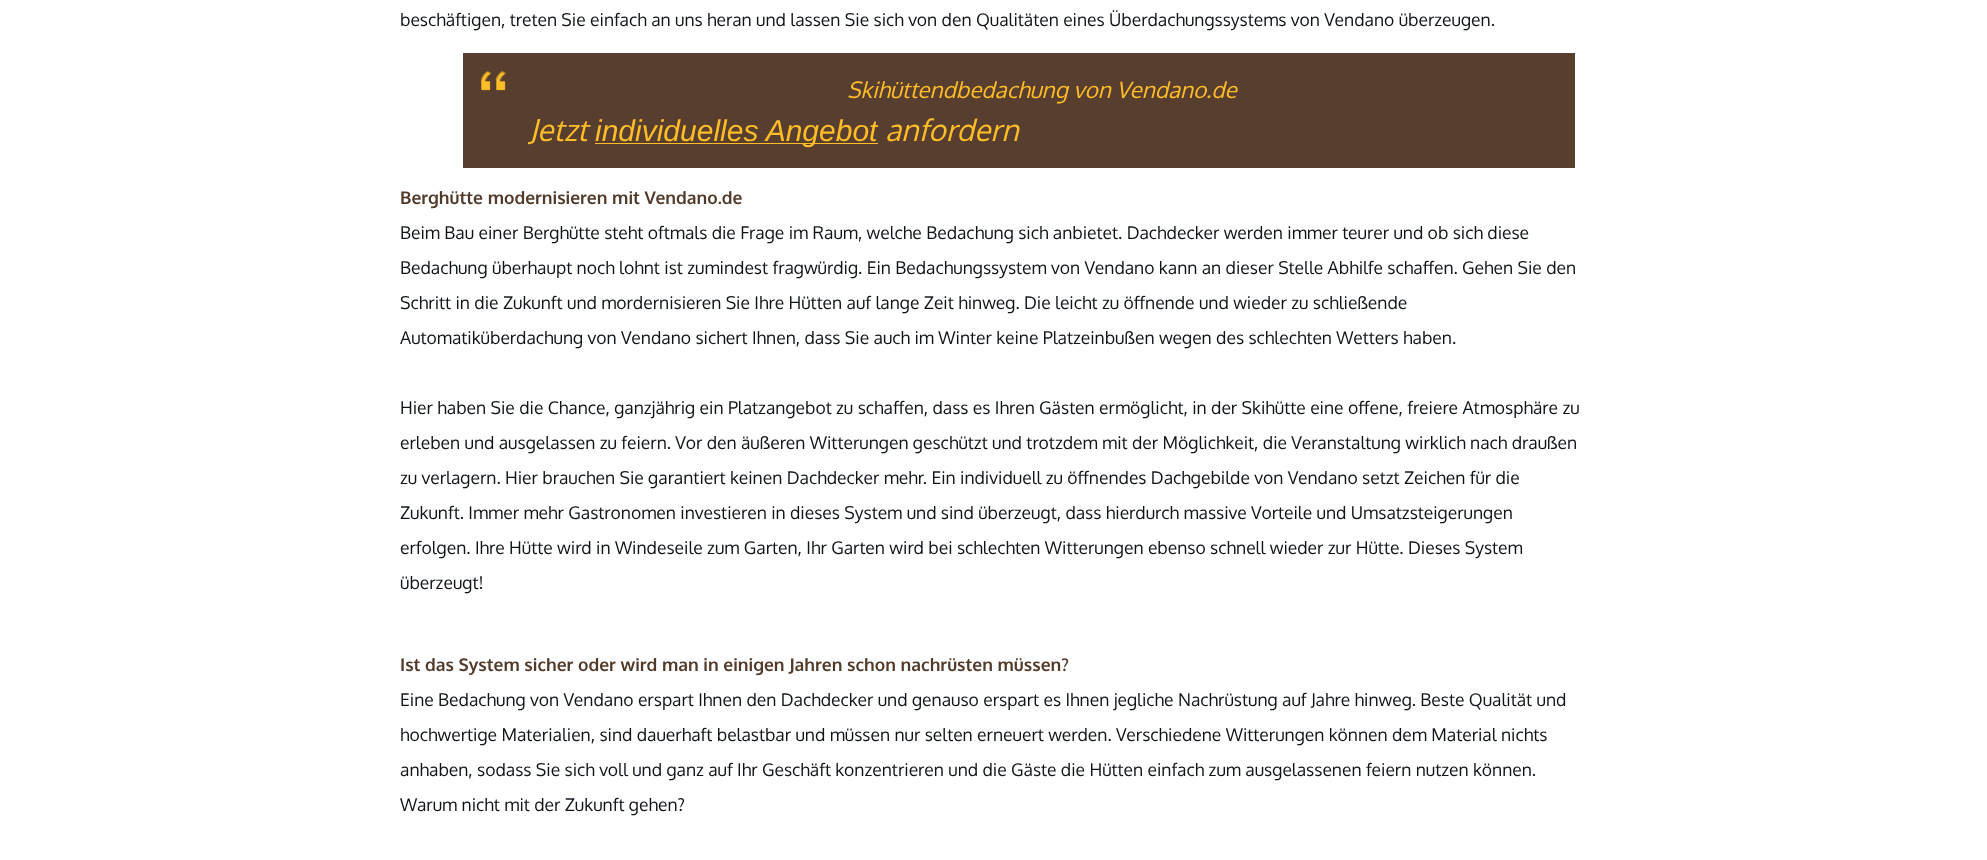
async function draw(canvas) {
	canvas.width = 1987;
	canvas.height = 860;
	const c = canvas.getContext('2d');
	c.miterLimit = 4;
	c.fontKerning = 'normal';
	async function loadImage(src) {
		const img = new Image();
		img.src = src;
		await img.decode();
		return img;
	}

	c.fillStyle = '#fff';
	c.fillRect(0, 0, 1987, 860);
	c.font = '17.5px Oxygen';
	c.fillStyle = '#0f1419';
	c.fillText('beschäftigen, treten Sie einfach an uns heran und lassen Sie sich von den Qualitäten eines Überdachungssystems von Vendano überzeugen.', 400, 26);
	c.fillStyle = '#573e2e';
	c.fillRect(463, 53, 1112, 115);
	c.drawImage(await loadImage('img1.png'), 480, 71, 27, 20);
	c.font = 'italic 22.5px Oxygen';
	c.fillStyle = '#ffbd28';
	c.fillText('Skihüttendbedachung von Vendano.de', 847, 98);
	c.font = 'italic 30px Oxygen';
	c.fillText('Jetzt', 529, 141);
	c.fillRect(595, 143, 283, 1);
	c.font = 'italic 30px Liberation Sans';
	c.fillText('individuelles Angebot', 595, 141);
	c.font = 'italic 30px Oxygen';
	c.fillText('anfordern', 885, 141);
	c.font = 'bold 17.5px Oxygen';
	c.fillStyle = '#513a2a';
	c.fillText('Berghütte modernisieren mit Vendano.de', 400, 204);
	c.font = '17.5px Oxygen';
	c.fillStyle = '#0f1419';
	for (const [text, x, y] of [
		['Beim Bau einer Berghütte steht oftmals die Frage im Raum, welche Bedachung sich anbietet. Dachdecker werden immer teurer und ob sich diese', 400, 239],
		['Bedachung überhaupt noch lohnt ist zumindest fragwürdig. Ein Bedachungssystem von Vendano kann an dieser Stelle Abhilfe schaffen. Gehen Sie den', 400, 274],
		['Schritt in die Zukunft und mordernisieren Sie Ihre Hütten auf lange Zeit hinweg. Die leicht zu öffnende und wieder zu schließende', 400, 309],
		['Automatiküberdachung von Vendano sichert Ihnen, dass Sie auch im Winter keine Platzeinbußen wegen des schlechten Wetters haben.', 400, 344],
		['Hier haben Sie die Chance, ganzjährig ein Platzangebot zu schaffen, dass es Ihren Gästen ermöglicht, in der Skihütte eine offene, freiere Atmosphäre zu', 400, 414],
		['erleben und ausgelassen zu feiern. Vor den äußeren Witterungen geschützt und trotzdem mit der Möglichkeit, die Veranstaltung wirklich nach draußen', 400, 449],
		['zu verlagern. Hier brauchen Sie garantiert keinen Dachdecker mehr. Ein individuell zu öffnendes Dachgebilde von Vendano setzt Zeichen für die', 400, 484],
		['Zukunft. Immer mehr Gastronomen investieren in dieses System und sind überzeugt, dass hierdurch massive Vorteile und Umsatzsteigerungen', 400, 519],
		['erfolgen. Ihre Hütte wird in Windeseile zum Garten, Ihr Garten wird bei schlechten Witterungen ebenso schnell wieder zur Hütte. Dieses System', 400, 554],
		['überzeugt!', 400, 589],
	]) {
		c.fillText(text, x, y);
	}
	c.font = 'bold 17.5px Oxygen';
	c.fillStyle = '#513a2a';
	c.fillText('Ist das System sicher oder wird man in einigen Jahren schon nachrüsten müssen?', 400, 671);
	c.font = '17.5px Oxygen';
	c.fillStyle = '#0f1419';
	for (const [text, x, y] of [
		['Eine Bedachung von Vendano erspart Ihnen den Dachdecker und genauso erspart es Ihnen jegliche Nachrüstung auf Jahre hinweg. Beste Qualität und', 400, 706],
		['hochwertige Materialien, sind dauerhaft belastbar und müssen nur selten erneuert werden. Verschiedene Witterungen können dem Material nichts', 400, 741],
		['anhaben, sodass Sie sich voll und ganz auf Ihr Geschäft konzentrieren und die Gäste die Hütten einfach zum ausgelassenen feiern nutzen können.', 400, 776],
		['Warum nicht mit der Zukunft gehen?', 400, 811],
	]) {
		c.fillText(text, x, y);
	}
}

draw(document.querySelector('canvas'));
